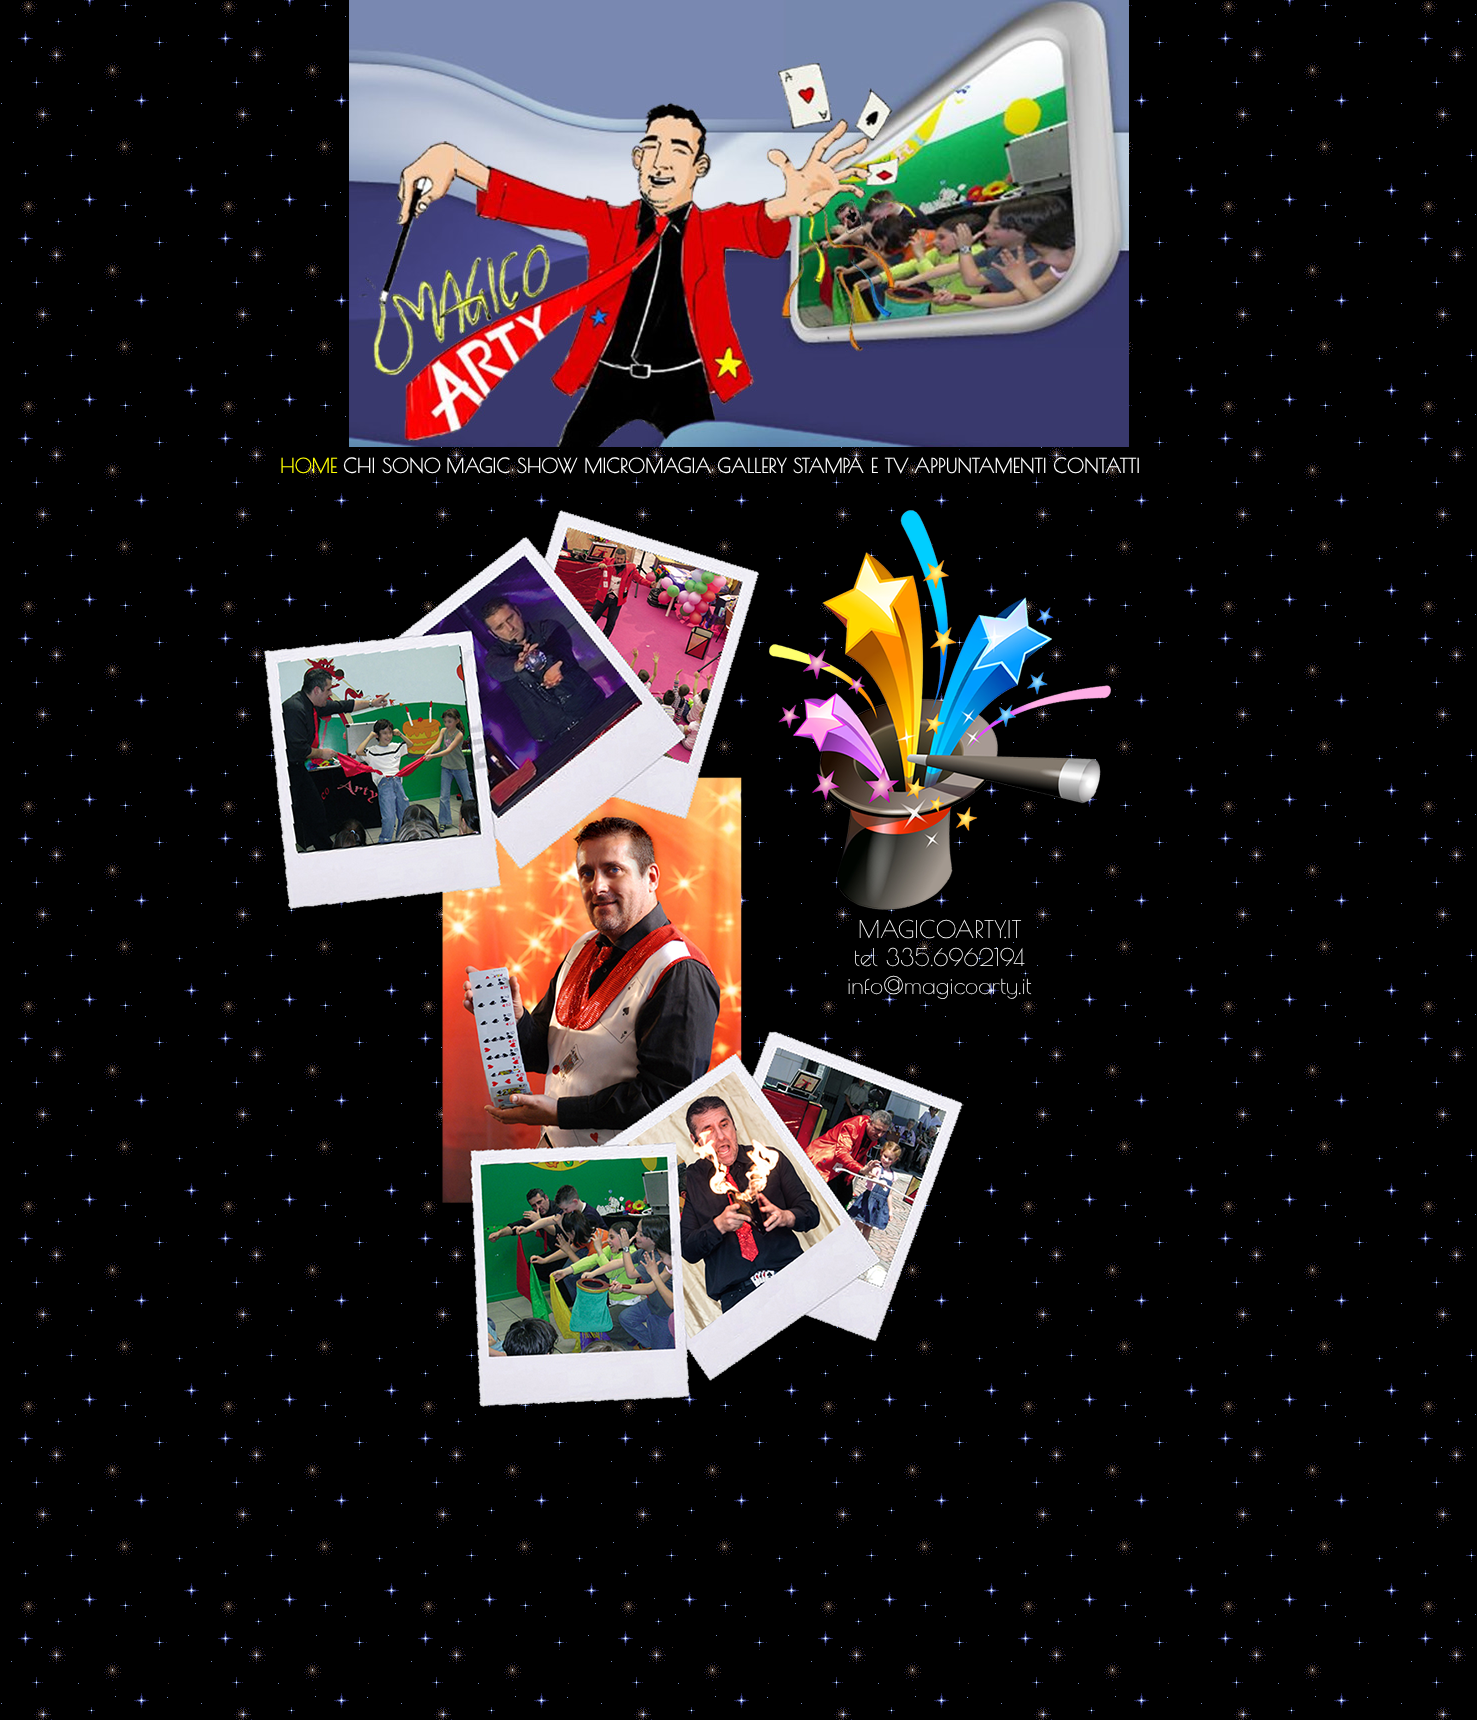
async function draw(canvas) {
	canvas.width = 1477;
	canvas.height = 1720;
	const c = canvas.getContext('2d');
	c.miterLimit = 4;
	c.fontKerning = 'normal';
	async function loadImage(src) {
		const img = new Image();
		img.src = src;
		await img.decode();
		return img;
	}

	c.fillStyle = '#fff';
	c.fillRect(0, 0, 1477, 1720);
	c.drawImage(await loadImage('img1.png'), 0, 0, 1477, 1720);
	c.drawImage(await loadImage('img2.png'), 349, 0, 780, 447);
	c.font = 'bold 19.75px Poiret One';
	c.fillStyle = '#ff0';
	c.fillText('HOME', 280, 473);
	c.fillStyle = '#fff';
	for (const [text, x, y] of [
		['CHI SONO', 343, 473],
		['MAGIC SHOW', 446, 473],
		['MICROMAGIA', 584, 473],
		['GALLERY', 717, 473],
		['STAMPA E TV', 793, 473],
		['APPUNTAMENTI', 914, 473],
		['CONTATTI', 1053, 473],
	]) {
		c.fillText(text, x, y);
	}
	c.drawImage(await loadImage('img3.png'), 264, 510, 700, 897);
	c.drawImage(await loadImage('img4.png'), 769, 510, 342, 400);
	c.font = '24px Poiret One';
	for (const [text, x, y] of [
		['MAGICOARTY.IT', 858, 938],
		['tel 335.6962194', 854, 966],
		['info@magicoarty.it', 847, 994],
	]) {
		c.fillText(text, x, y);
	}
}

draw(document.querySelector('canvas'));
